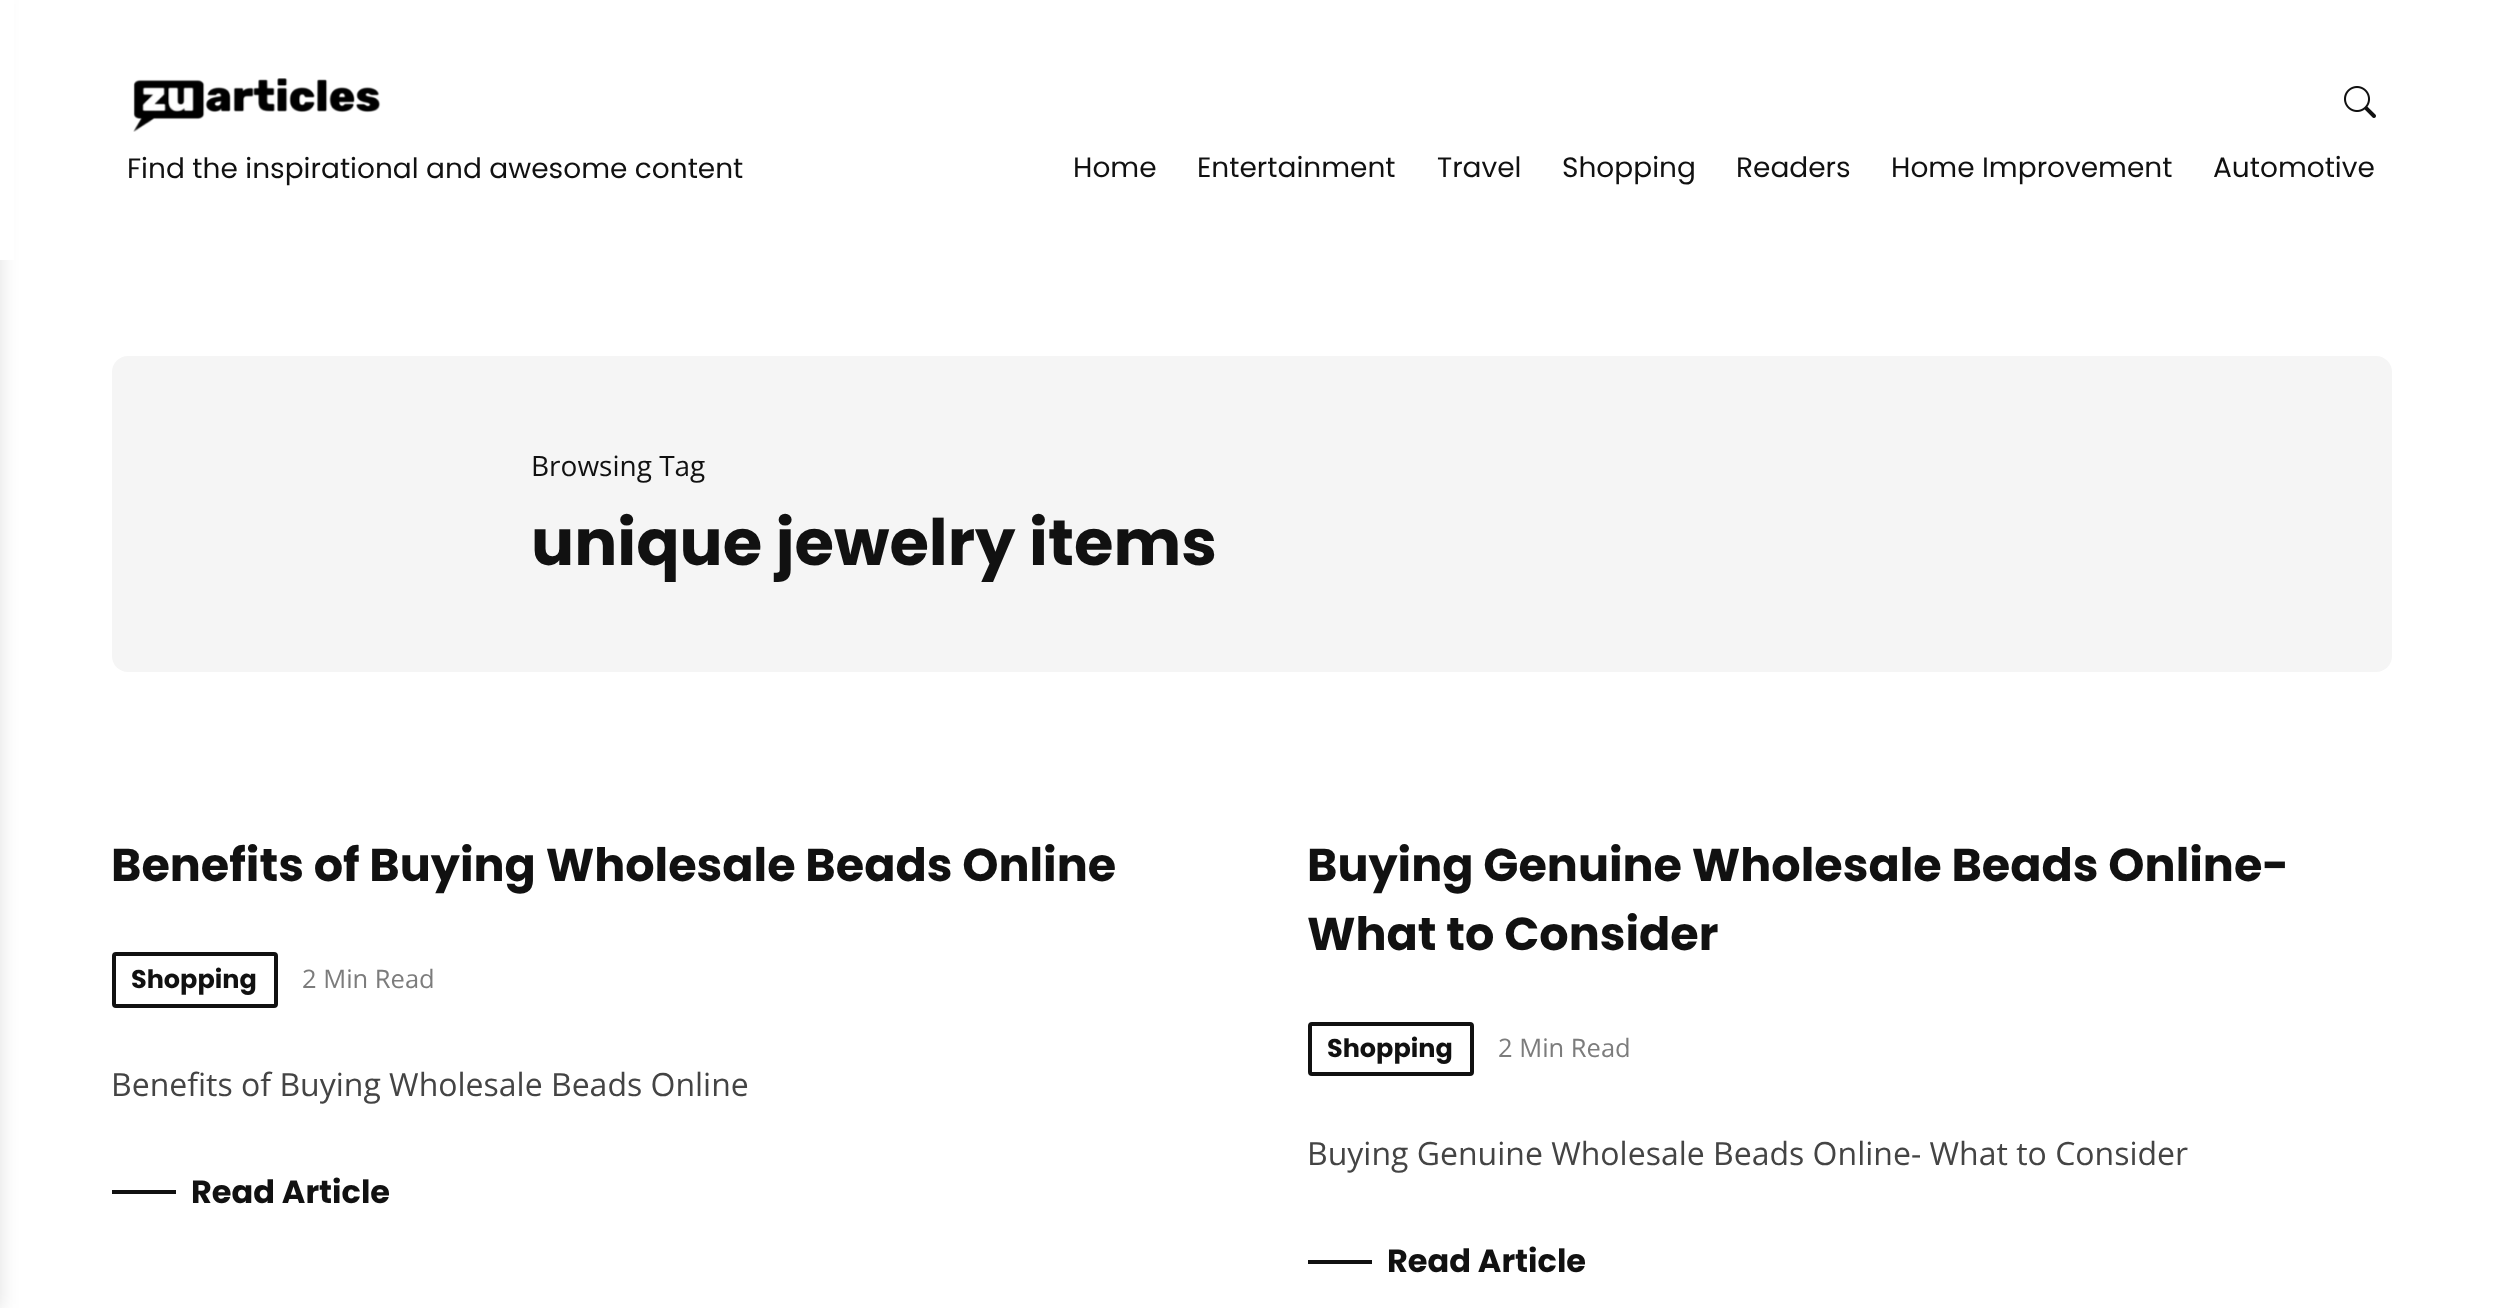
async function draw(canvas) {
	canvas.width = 2501;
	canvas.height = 1308;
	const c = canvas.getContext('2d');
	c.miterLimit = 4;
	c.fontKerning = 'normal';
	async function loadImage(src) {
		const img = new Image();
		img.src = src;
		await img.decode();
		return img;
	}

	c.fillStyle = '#fff';
	c.fillRect(0, 0, 2501, 1308);
	c.fillStyle = '#0000001a';
	c.filter = 'blur(9px)';
	c.beginPath();
	c.rect(-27, -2, 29, 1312);
	c.fill();
	c.filter = 'none';
	c.fillStyle = '#fff';
	c.fillRect(0, 0, 14, 260);
	c.drawImage(await loadImage('img1.png'), 133, 78, 248, 54);
	c.font = '28px Poppins';
	c.fillStyle = '#111';
	c.fillText('Find the inspirational and awesome content', 127, 178);
	c.drawImage(await loadImage('img2.png'), 2344, 86, 32, 32);
	for (const [text, x, y] of [
		['Home', 1073, 177],
		['Entertainment', 1197, 177],
		['Travel', 1437, 177],
		['Shopping', 1562, 177],
		['Readers', 1736, 177],
		['Home Improvement', 1891, 177],
		['Automotive', 2213, 177],
	]) {
		c.fillText(text, x, y);
	}
	c.fillStyle = '#f5f5f5';
	c.beginPath();
	c.roundRect(112, 356, 2280, 316, 16);
	c.fill();
	c.font = '28px Open Sans';
	c.fillStyle = '#111';
	c.fillText('Browsing Tag', 531, 476);
	c.font = 'bold 64px Poppins';
	c.fillText('unique jewelry items', 531, 565);
	c.font = 'bold 46.1px Poppins';
	c.fillText('Benefits of Buying Wholesale Beads Online', 111, 881);
	c.beginPath();
	c.roundRect(114, 954, 162, 52, 2);
	c.strokeStyle = '#111';
	c.lineWidth = 4;
	c.stroke();
	c.font = 'bold 25.5px Poppins';
	c.fillText('Shopping', 131, 988);
	c.font = '25.5px Open Sans';
	c.fillStyle = '#7c7c7c';
	c.fillText('2 Min Read', 302, 988);
	c.font = '32px Open Sans';
	c.fillStyle = '#444';
	c.fillText('Benefits of Buying Wholesale Beads Online', 111, 1096);
	c.fillStyle = '#111';
	c.fillRect(112, 1190, 64, 4);
	c.font = 'bold 32px Poppins';
	c.fillText('Read Article', 191, 1203);
	c.font = 'bold 46.1px Poppins';
	c.fillText('Buying Genuine Wholesale Beads Online-', 1307, 881);
	c.fillText('What to Consider', 1307, 950);
	c.beginPath();
	c.roundRect(1310, 1024, 162, 50, 2);
	c.stroke();
	c.font = 'bold 25.5px Poppins';
	c.fillText('Shopping', 1327, 1057);
	c.font = '25.5px Open Sans';
	c.fillStyle = '#7c7c7c';
	c.fillText('2 Min Read', 1498, 1057);
	c.font = '32px Open Sans';
	c.fillStyle = '#444';
	c.fillText('Buying Genuine Wholesale Beads Online- What to Consider', 1307, 1165);
	c.fillStyle = '#111';
	c.fillRect(1308, 1260, 64, 4);
	c.font = 'bold 32px Poppins';
	c.fillText('Read Article', 1387, 1272);
}

draw(document.querySelector('canvas'));
